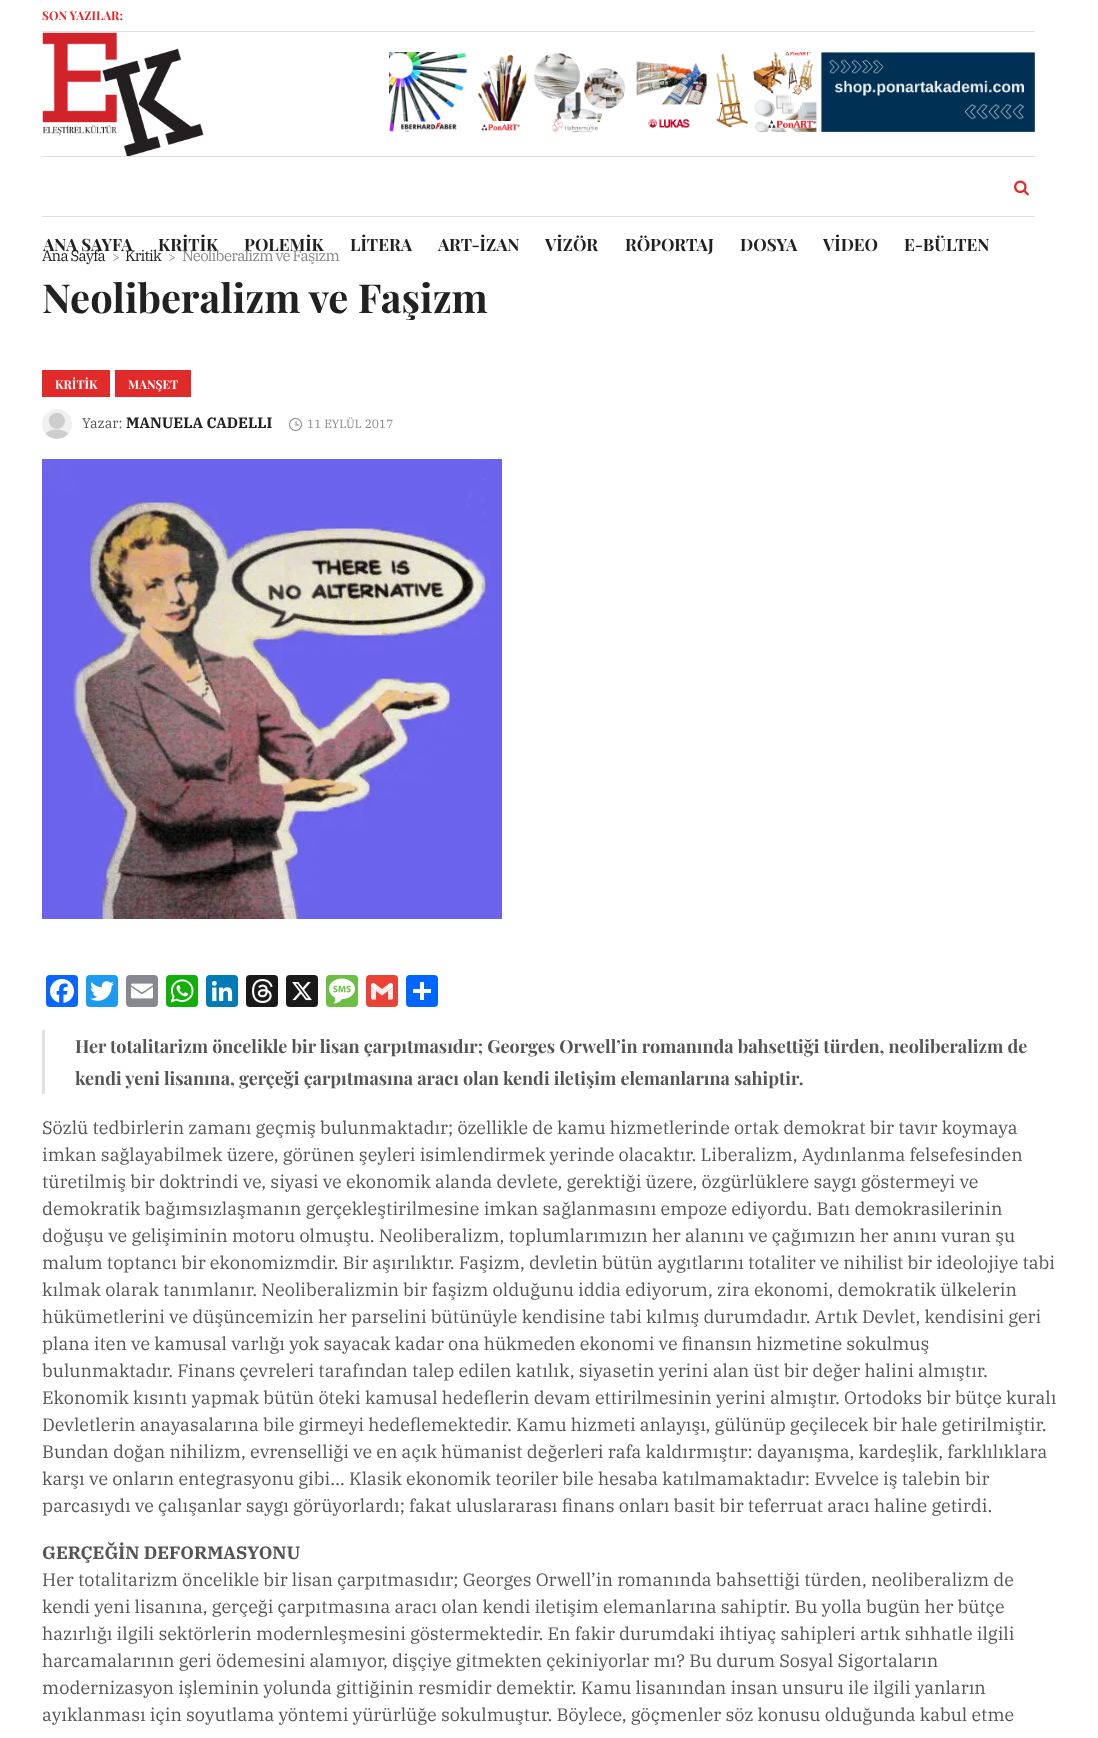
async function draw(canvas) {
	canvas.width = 1098;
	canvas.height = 1738;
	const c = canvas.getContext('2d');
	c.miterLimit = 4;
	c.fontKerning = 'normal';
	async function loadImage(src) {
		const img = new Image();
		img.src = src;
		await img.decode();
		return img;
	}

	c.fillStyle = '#fff';
	c.fillRect(0, 0, 1098, 1738);
	c.fillStyle = '#dedede';
	c.fillRect(42, 31, 993, 1);
	c.font = 'bold 12px Playfair Display';
	c.fillStyle = '#e12b2b';
	c.fillText('SON YAZILAR:', 42, 20);
	c.fillStyle = '#dedede';
	c.fillRect(42, 156, 993, 1);
	c.drawImage(await loadImage('img1.png'), 42, 32, 162, 124);
	c.drawImage(await loadImage('img2.png'), 389, 52, 646, 80);
	c.fillRect(42, 216, 993, 1);
	c.drawImage(await loadImage('img3.png'), 1014, 180, 15, 16);
	c.font = 'bold 17px Playfair Display';
	c.fillStyle = '#212121';
	for (const [text, x, y] of [
		['ANA SAYFA', 43, 251],
		['KRİTİK', 158, 251],
		['POLEMİK', 244, 251],
		['LİTERA', 350, 251],
		['ART-İZAN', 438, 251],
		['VİZÖR', 545, 251],
		['RÖPORTAJ', 625, 251],
		['DOSYA', 740, 251],
		['VİDEO', 823, 251],
		['E-BÜLTEN', 904, 251],
	]) {
		c.fillText(text, x, y);
	}
	c.letterSpacing = '-0.75px';
	c.font = '15px IBM Plex Serif';
	c.fillText('Ana Sayfa', 42, 261);
	c.font = '13px IBM Plex Serif';
	c.fillStyle = '#878787';
	c.fillText('>', 112, 261);
	c.font = '15px IBM Plex Serif';
	c.fillStyle = '#212121';
	c.fillText('Kritik', 125, 261);
	c.font = '13px IBM Plex Serif';
	c.fillStyle = '#878787';
	c.fillText('>', 168, 261);
	c.font = '15px IBM Plex Serif';
	c.fillText('Neoliberalizm ve Faşizm', 182, 261);
	c.save();
	c.beginPath();
	c.rect(22, 217, 1054, 103);
	c.clip();
	c.letterSpacing = '0px';
	c.font = 'bold 40px Playfair Display';
	c.fillStyle = '#212121';
	c.fillText('Neoliberalizm ve Faşizm', 42, 313);
	c.restore();
	c.fillStyle = '#e12b2b';
	c.fillRect(42, 370, 68, 27);
	c.letterSpacing = '0px';
	c.font = 'bold 12px Playfair Display';
	c.fillStyle = '#fff';
	c.fillText('KRİTİK', 55, 389);
	c.fillStyle = '#e12b2b';
	c.fillRect(115, 370, 76, 27);
	c.fillStyle = '#fff';
	c.fillText('MANŞET', 128, 389);
	c.drawImage(await loadImage('img4.png'), 42, 409, 30, 30);
	c.font = '14px IBM Plex Serif';
	c.fillStyle = '#555';
	c.fillText('Yazar:', 82, 428);
	c.font = 'bold 15px IBM Plex Serif';
	c.fillStyle = '#212121';
	c.fillText('MANUELA CADELLI', 126, 428);
	c.drawImage(await loadImage('img5.png'), 289, 418, 13, 13);
	c.font = '12px IBM Plex Serif';
	c.fillStyle = '#878787';
	c.fillText('11 EYLÜL 2017', 307, 428);
	c.drawImage(await loadImage('img6.png'), 42, 459, 460, 460);
	c.fillStyle = '#0866ff';
	c.beginPath();
	c.roundRect(46, 975, 32, 32, 4);
	c.fill();
	c.drawImage(await loadImage('img7.png'), 50, 979, 24, 24);
	c.fillStyle = '#1d9bf0';
	c.beginPath();
	c.roundRect(86, 975, 32, 32, 4);
	c.fill();
	c.drawImage(await loadImage('img8.png'), 90, 981, 24, 20);
	c.fillStyle = '#888990';
	c.beginPath();
	c.roundRect(126, 975, 32, 32, 4);
	c.fill();
	c.drawImage(await loadImage('img9.png'), 131, 983, 22, 16);
	c.fillStyle = '#12af0a';
	c.beginPath();
	c.roundRect(166, 975, 32, 32, 4);
	c.fill();
	c.drawImage(await loadImage('img10.png'), 170, 979, 24, 24);
	c.fillStyle = '#007bb5';
	c.beginPath();
	c.roundRect(206, 975, 32, 32, 4);
	c.fill();
	c.drawImage(await loadImage('img11.png'), 211, 980, 22, 22);
	c.fillStyle = '#1a1a1a';
	c.beginPath();
	c.roundRect(246, 975, 32, 32, 4);
	c.fill();
	c.drawImage(await loadImage('img12.png'), 252, 979, 21, 24);
	c.beginPath();
	c.roundRect(286, 975, 32, 32, 4);
	c.fill();
	c.drawImage(await loadImage('img13.png'), 292, 982, 20, 19);
	c.fillStyle = '#6cbe45';
	c.beginPath();
	c.roundRect(326, 975, 32, 32, 4);
	c.fill();
	c.drawImage(await loadImage('img14.png'), 329, 978, 26, 26);
	c.fillStyle = '#ea4335';
	c.beginPath();
	c.roundRect(366, 975, 32, 32, 4);
	c.fill();
	c.drawImage(await loadImage('img15.png'), 371, 983, 22, 17);
	c.fillStyle = '#0166ff';
	c.beginPath();
	c.roundRect(406, 975, 32, 32, 4);
	c.fill();
	for (const [x, y, w, h, color] of [
		[420, 982, 4, 18, '#fff'],
		[413, 989, 18, 4, '#fff'],
		[42, 1030, 3, 64, '#e1e1e1'],
	]) {
		c.fillStyle = color;
		c.fillRect(x, y, w, h);
	}
	c.font = 'bold 18px Playfair Display';
	c.fillStyle = '#555';
	c.fillText('Her totalitarizm öncelikle bir lisan çarpıtmasıdır; Georges Orwell’in romanında bahsettiği türden, neoliberalizm de', 75, 1053);
	c.fillText('kendi yeni lisanına, gerçeği çarpıtmasına aracı olan kendi iletişim elemanlarına sahiptir.', 75, 1085);
	c.font = '18px IBM Plex Serif';
	for (const [text, x, y] of [
		['Sözlü tedbirlerin zamanı geçmiş bulunmaktadır; özellikle de kamu hizmetlerinde ortak demokrat bir tavır koymaya', 42, 1134],
		['imkan sağlayabilmek üzere, görünen şeyleri isimlendirmek yerinde olacaktır. Liberalizm, Aydınlanma felsefesinden', 42, 1161],
		['türetilmiş bir doktrindi ve, siyasi ve ekonomik alanda devlete, gerektiği üzere, özgürlüklere saygı göstermeyi ve', 42, 1188],
		['demokratik bağımsızlaşmanın gerçekleştirilmesine imkan sağlanmasını empoze ediyordu. Batı demokrasilerinin', 42, 1215],
		['doğuşu ve gelişiminin motoru olmuştu. Neoliberalizm, toplumlarımızın her alanını ve çağımızın her anını vuran şu', 42, 1242],
		['malum toptancı bir ekonomizmdir. Bir aşırılıktır. Faşizm, devletin bütün aygıtlarını totaliter ve nihilist bir ideolojiye tabi', 42, 1269],
		['kılmak olarak tanımlanır. Neoliberalizmin bir faşizm olduğunu iddia ediyorum, zira ekonomi, demokratik ülkelerin', 42, 1296],
		['hükümetlerini ve düşüncemizin her parselini bütünüyle kendisine tabi kılmış durumdadır. Artık Devlet, kendisini geri', 42, 1323],
		['plana iten ve kamusal varlığı yok sayacak kadar ona hükmeden ekonomi ve finansın hizmetine sokulmuş', 42, 1350],
		['bulunmaktadır. Finans çevreleri tarafından talep edilen katılık, siyasetin yerini alan üst bir değer halini almıştır.', 42, 1377],
		['Ekonomik kısıntı yapmak bütün öteki kamusal hedeflerin devam ettirilmesinin yerini almıştır. Ortodoks bir bütçe kuralı', 42, 1404],
		['Devletlerin anayasalarına bile girmeyi hedeflemektedir. Kamu hizmeti anlayışı, gülünüp geçilecek bir hale getirilmiştir.', 42, 1431],
		['Bundan doğan nihilizm, evrenselliği ve en açık hümanist değerleri rafa kaldırmıştır: dayanışma, kardeşlik, farklılıklara', 42, 1458],
		['karşı ve onların entegrasyonu gibi… Klasik ekonomik teoriler bile hesaba katılmamaktadır: Evvelce iş talebin bir', 42, 1485],
		['parcasıydı ve çalışanlar saygı görüyorlardı; fakat uluslararası finans onları basit bir teferruat aracı haline getirdi.', 42, 1512],
	]) {
		c.fillText(text, x, y);
	}
	c.font = 'bold 18px IBM Plex Serif';
	c.fillText('GERÇEĞİN DEFORMASYONU', 42, 1559);
	c.font = '18px IBM Plex Serif';
	for (const [text, x, y] of [
		['Her totalitarizm öncelikle bir lisan çarpıtmasıdır; Georges Orwell’in romanında bahsettiği türden, neoliberalizm de', 42, 1586],
		['kendi yeni lisanına, gerçeği çarpıtmasına aracı olan kendi iletişim elemanlarına sahiptir. Bu yolla bugün her bütçe', 42, 1613],
		['hazırlığı ilgili sektörlerin modernleşmesini göstermektedir. En fakir durumdaki ihtiyaç sahipleri artık sıhhatle ilgili', 42, 1640],
		['harcamalarının geri ödemesini alamıyor, dişçiye gitmekten çekiniyorlar mı? Bu durum Sosyal Sigortaların', 42, 1667],
		['modernizasyon işleminin yolunda gittiğinin resmidir demektir. Kamu lisanından insan unsuru ile ilgili yanların', 42, 1694],
		['ayıklanması için soyutlama yöntemi yürürlüğe sokulmuştur. Böylece, göçmenler söz konusu olduğunda kabul etme', 42, 1721],
	]) {
		c.fillText(text, x, y);
	}
}

draw(document.querySelector('canvas'));
